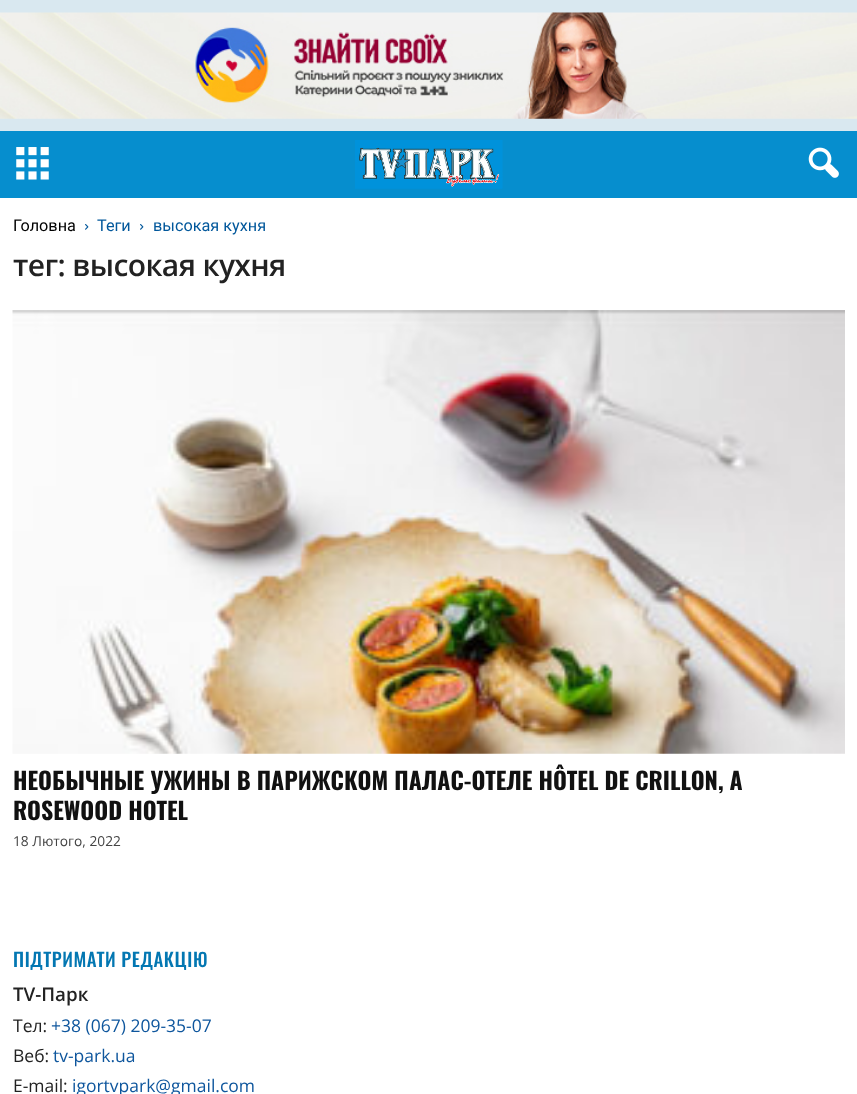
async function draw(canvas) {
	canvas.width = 857;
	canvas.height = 1094;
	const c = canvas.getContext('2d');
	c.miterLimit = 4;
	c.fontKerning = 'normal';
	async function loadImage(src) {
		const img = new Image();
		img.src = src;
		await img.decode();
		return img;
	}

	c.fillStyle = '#d9e8f0';
	c.fillRect(0, 0, 857, 1094);
	c.drawImage(await loadImage('img1.png'), 0, 12, 857, 107);
	c.fillStyle = '#068ece';
	c.fillRect(0, 131, 857, 67);
	c.drawImage(await loadImage('img2.png'), 16, 147, 33, 33);
	c.drawImage(await loadImage('img3.png'), 355, 140, 148, 49);
	c.drawImage(await loadImage('img4.png'), 808, 147, 31, 31);
	c.fillStyle = '#fff';
	c.fillRect(0, 198, 857, 896);
	c.font = '16.25px Roboto';
	c.fillStyle = '#000';
	c.fillText('Головна', 13, 231);
	c.drawImage(await loadImage('img5.png'), 85, 224, 4, 6);
	c.fillStyle = '#01579b';
	c.fillText('Теги', 97, 231);
	c.drawImage(await loadImage('img5.png'), 140, 224, 4, 6);
	c.fillText('высокая кухня', 153, 231);
	c.letterSpacing = '-0.6px';
	c.font = '600 30px Open Sans';
	c.fillStyle = '#222';
	c.fillText('тег: высокая кухня', 13, 276);
	c.drawImage(await loadImage('img6.png'), 12, 310, 833, 444);
	c.letterSpacing = '0px';
	c.font = 'bold 23.75px Oswald';
	c.fillStyle = '#111';
	c.fillText('НЕОБЫЧНЫЕ УЖИНЫ В ПАРИЖСКОМ ПАЛАС-ОТЕЛЕ HÔTEL DE CRILLON, A', 13, 790);
	c.fillText('ROSEWOOD HOTEL', 13, 820);
	c.font = '13.75px Open Sans';
	c.fillStyle = '#444';
	c.fillText('18 Лютого, 2022', 13, 846);
	c.letterSpacing = '0.6px';
	c.font = '500 18.75px Oswald';
	c.fillStyle = '#0377b2';
	c.fillText('ПІДТРИМАТИ РЕДАКЦІЮ', 13, 967);
	c.letterSpacing = '0px';
	c.font = '600 18.75px Open Sans';
	c.fillStyle = '#222';
	c.fillText('TV-Парк', 13, 1001);
	c.font = '17.5px Open Sans';
	c.fillText('Тел:', 13, 1032);
	c.fillStyle = '#0e569d';
	c.fillText('+38 (067) 209-35-07', 51, 1032);
	c.fillStyle = '#222';
	c.fillText('Веб:', 13, 1062);
	c.fillStyle = '#0e569d';
	c.fillText('tv-park.ua', 53, 1062);
	c.fillStyle = '#222';
	c.fillText('E-mail:', 13, 1092);
	c.fillStyle = '#0e569d';
	c.fillText('igortvpark@gmail.com', 72, 1092);
}

draw(document.querySelector('canvas'));
